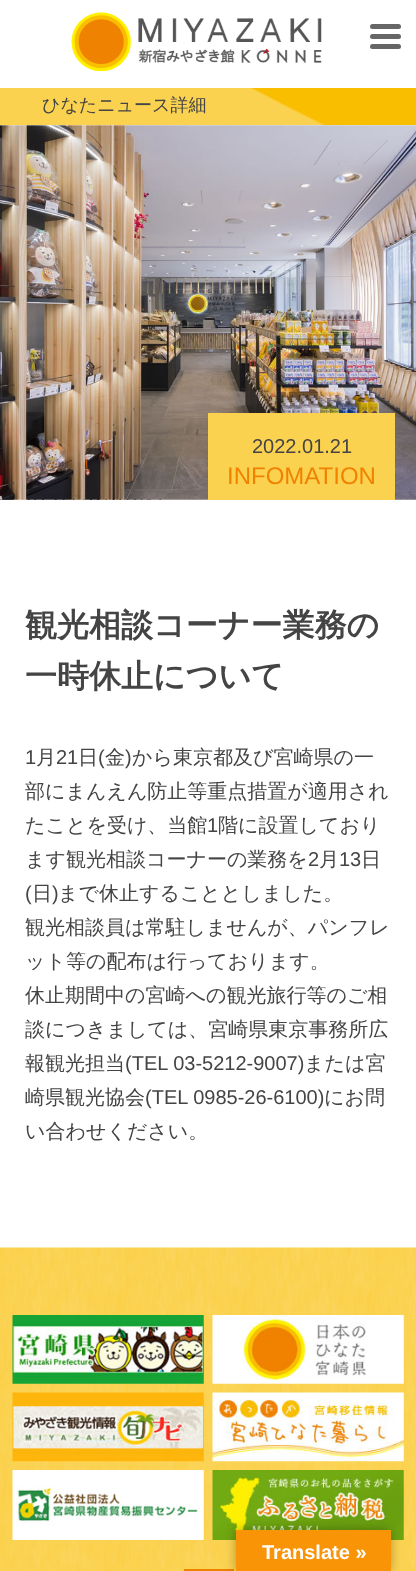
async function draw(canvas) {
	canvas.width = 416;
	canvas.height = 1571;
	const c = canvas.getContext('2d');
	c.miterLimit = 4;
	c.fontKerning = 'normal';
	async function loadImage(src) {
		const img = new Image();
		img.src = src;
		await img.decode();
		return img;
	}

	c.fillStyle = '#fff';
	c.fillRect(0, 0, 416, 1571);
	c.fillStyle = '#fabe00';
	c.fillRect(327, 88, 89, 37);
	c.fillStyle = '#fbd250';
	c.fillRect(0, 88, 248, 37);
	c.drawImage(await loadImage('img2.png'), 247, 87, 81, 38);
	c.fillStyle = '#ffffffe6';
	c.fillRect(247, 87, 81, 1);
	c.drawImage(await loadImage('img1.png'), 71, 12, 251, 60);
	c.fillStyle = '#666';
	c.beginPath();
	c.roundRect(370, 24, 31, 5, 2.5);
	c.fill();
	c.beginPath();
	c.roundRect(370, 34, 31, 5, 2.5);
	c.fill();
	c.beginPath();
	c.roundRect(370, 44, 31, 5, 2.5);
	c.fill();
	c.font = '500 18px WenQuanYi Zen Hei';
	c.fillStyle = '#444';
	c.fillText('ひなたニュース詳細', 42, 111);
	c.drawImage(await loadImage('img3.png'), 0, 125, 416, 375);
	c.fillStyle = '#fbd250';
	c.fillRect(208, 413, 187, 87);
	c.font = '20px Liberation Sans';
	c.fillStyle = '#444';
	c.fillText('2022.01.21', 252, 453);
	c.font = '24px Liberation Sans';
	c.fillStyle = '#f08200';
	c.fillText('INFOMATION', 227, 484);
	c.font = 'bold 32px WenQuanYi Zen Hei';
	c.fillStyle = '#444';
	c.fillText('観光相談コーナー業務の', 25, 636);
	c.fillText('一時休止について', 25, 687);
	c.font = '20px Liberation Sans';
	c.fillText('1', 25, 764);
	c.font = '500 20px WenQuanYi Zen Hei';
	c.fillText('月', 36, 764);
	c.font = '20px Liberation Sans';
	c.fillText('21', 56, 764);
	c.font = '500 20px WenQuanYi Zen Hei';
	c.fillText('日', 78, 764);
	c.font = '20px Liberation Sans';
	c.fillText('(', 98, 764);
	c.font = '500 20px WenQuanYi Zen Hei';
	c.fillText('金', 105, 764);
	c.font = '20px Liberation Sans';
	c.fillText(')', 125, 764);
	c.font = '500 20px WenQuanYi Zen Hei';
	for (const [text, x, y] of [
		['から東京都及び宮崎県の一', 132, 764],
		['部にまんえん防止等重点措置が適用され', 25, 798],
		['たことを受け、当館', 25, 832],
	]) {
		c.fillText(text, x, y);
	}
	c.font = '20px Liberation Sans';
	c.fillText('1', 207, 832);
	c.font = '500 20px WenQuanYi Zen Hei';
	c.fillText('階に設置しており', 218, 832);
	c.fillText('ます観光相談コーナーの業務を', 25, 866);
	c.font = '20px Liberation Sans';
	c.fillText('2', 308, 866);
	c.font = '500 20px WenQuanYi Zen Hei';
	c.fillText('月', 319, 866);
	c.font = '20px Liberation Sans';
	c.fillText('13', 339, 866);
	c.font = '500 20px WenQuanYi Zen Hei';
	c.fillText('日', 361, 866);
	c.font = '20px Liberation Sans';
	c.fillText('(', 25, 900);
	c.font = '500 20px WenQuanYi Zen Hei';
	c.fillText('日', 32, 900);
	c.font = '20px Liberation Sans';
	c.fillText(')', 52, 900);
	c.font = '500 20px WenQuanYi Zen Hei';
	for (const [text, x, y] of [
		['まで休止することとしました。', 58, 900],
		['観光相談員は常駐しませんが、パンフレ', 25, 934],
		['ット等の配布は行っております。', 25, 968],
		['休止期間中の宮崎への観光旅行等のご相', 25, 1002],
		['談につきましては、宮崎県東京事務所広', 25, 1036],
		['報観光担当', 25, 1070],
	]) {
		c.fillText(text, x, y);
	}
	c.font = '20px Liberation Sans';
	c.fillText('(TEL 03-5212-9007)', 125, 1070);
	c.font = '500 20px WenQuanYi Zen Hei';
	c.fillText('または宮', 304, 1070);
	c.fillText('崎県観光協会', 25, 1104);
	c.font = '20px Liberation Sans';
	c.fillText('(TEL 0985-26-6100)', 145, 1104);
	c.font = '500 20px WenQuanYi Zen Hei';
	c.fillText('にお問', 324, 1104);
	c.fillText('い合わせください。', 25, 1138);
	c.drawImage(await loadImage('img4.png'), 0, 1247, 416, 324);
	c.drawImage(await loadImage('img5.png'), 12, 1315, 192, 69);
	c.drawImage(await loadImage('img6.png'), 212, 1315, 192, 69);
	c.drawImage(await loadImage('img7.png'), 12, 1392, 192, 70);
	c.drawImage(await loadImage('img8.png'), 212, 1392, 192, 70);
	c.drawImage(await loadImage('img9.png'), 12, 1470, 192, 70);
	c.drawImage(await loadImage('img10.png'), 212, 1470, 192, 70);
	c.fillStyle = '#ef8200';
	c.fillRect(184, 1569, 50, 2);
	c.fillStyle = '#0000004d';
	c.filter = 'blur(5.5px)';
	c.beginPath();
	c.rect(236, 1530, 155, 41);
	c.fill();
	c.filter = 'none';
	c.fillStyle = '#f89406';
	c.fillRect(236, 1530, 155, 41);
	c.font = 'bold 20px Liberation Sans';
	c.fillStyle = '#fff';
	c.fillText('Translate »', 262, 1559);
}

draw(document.querySelector('canvas'));
